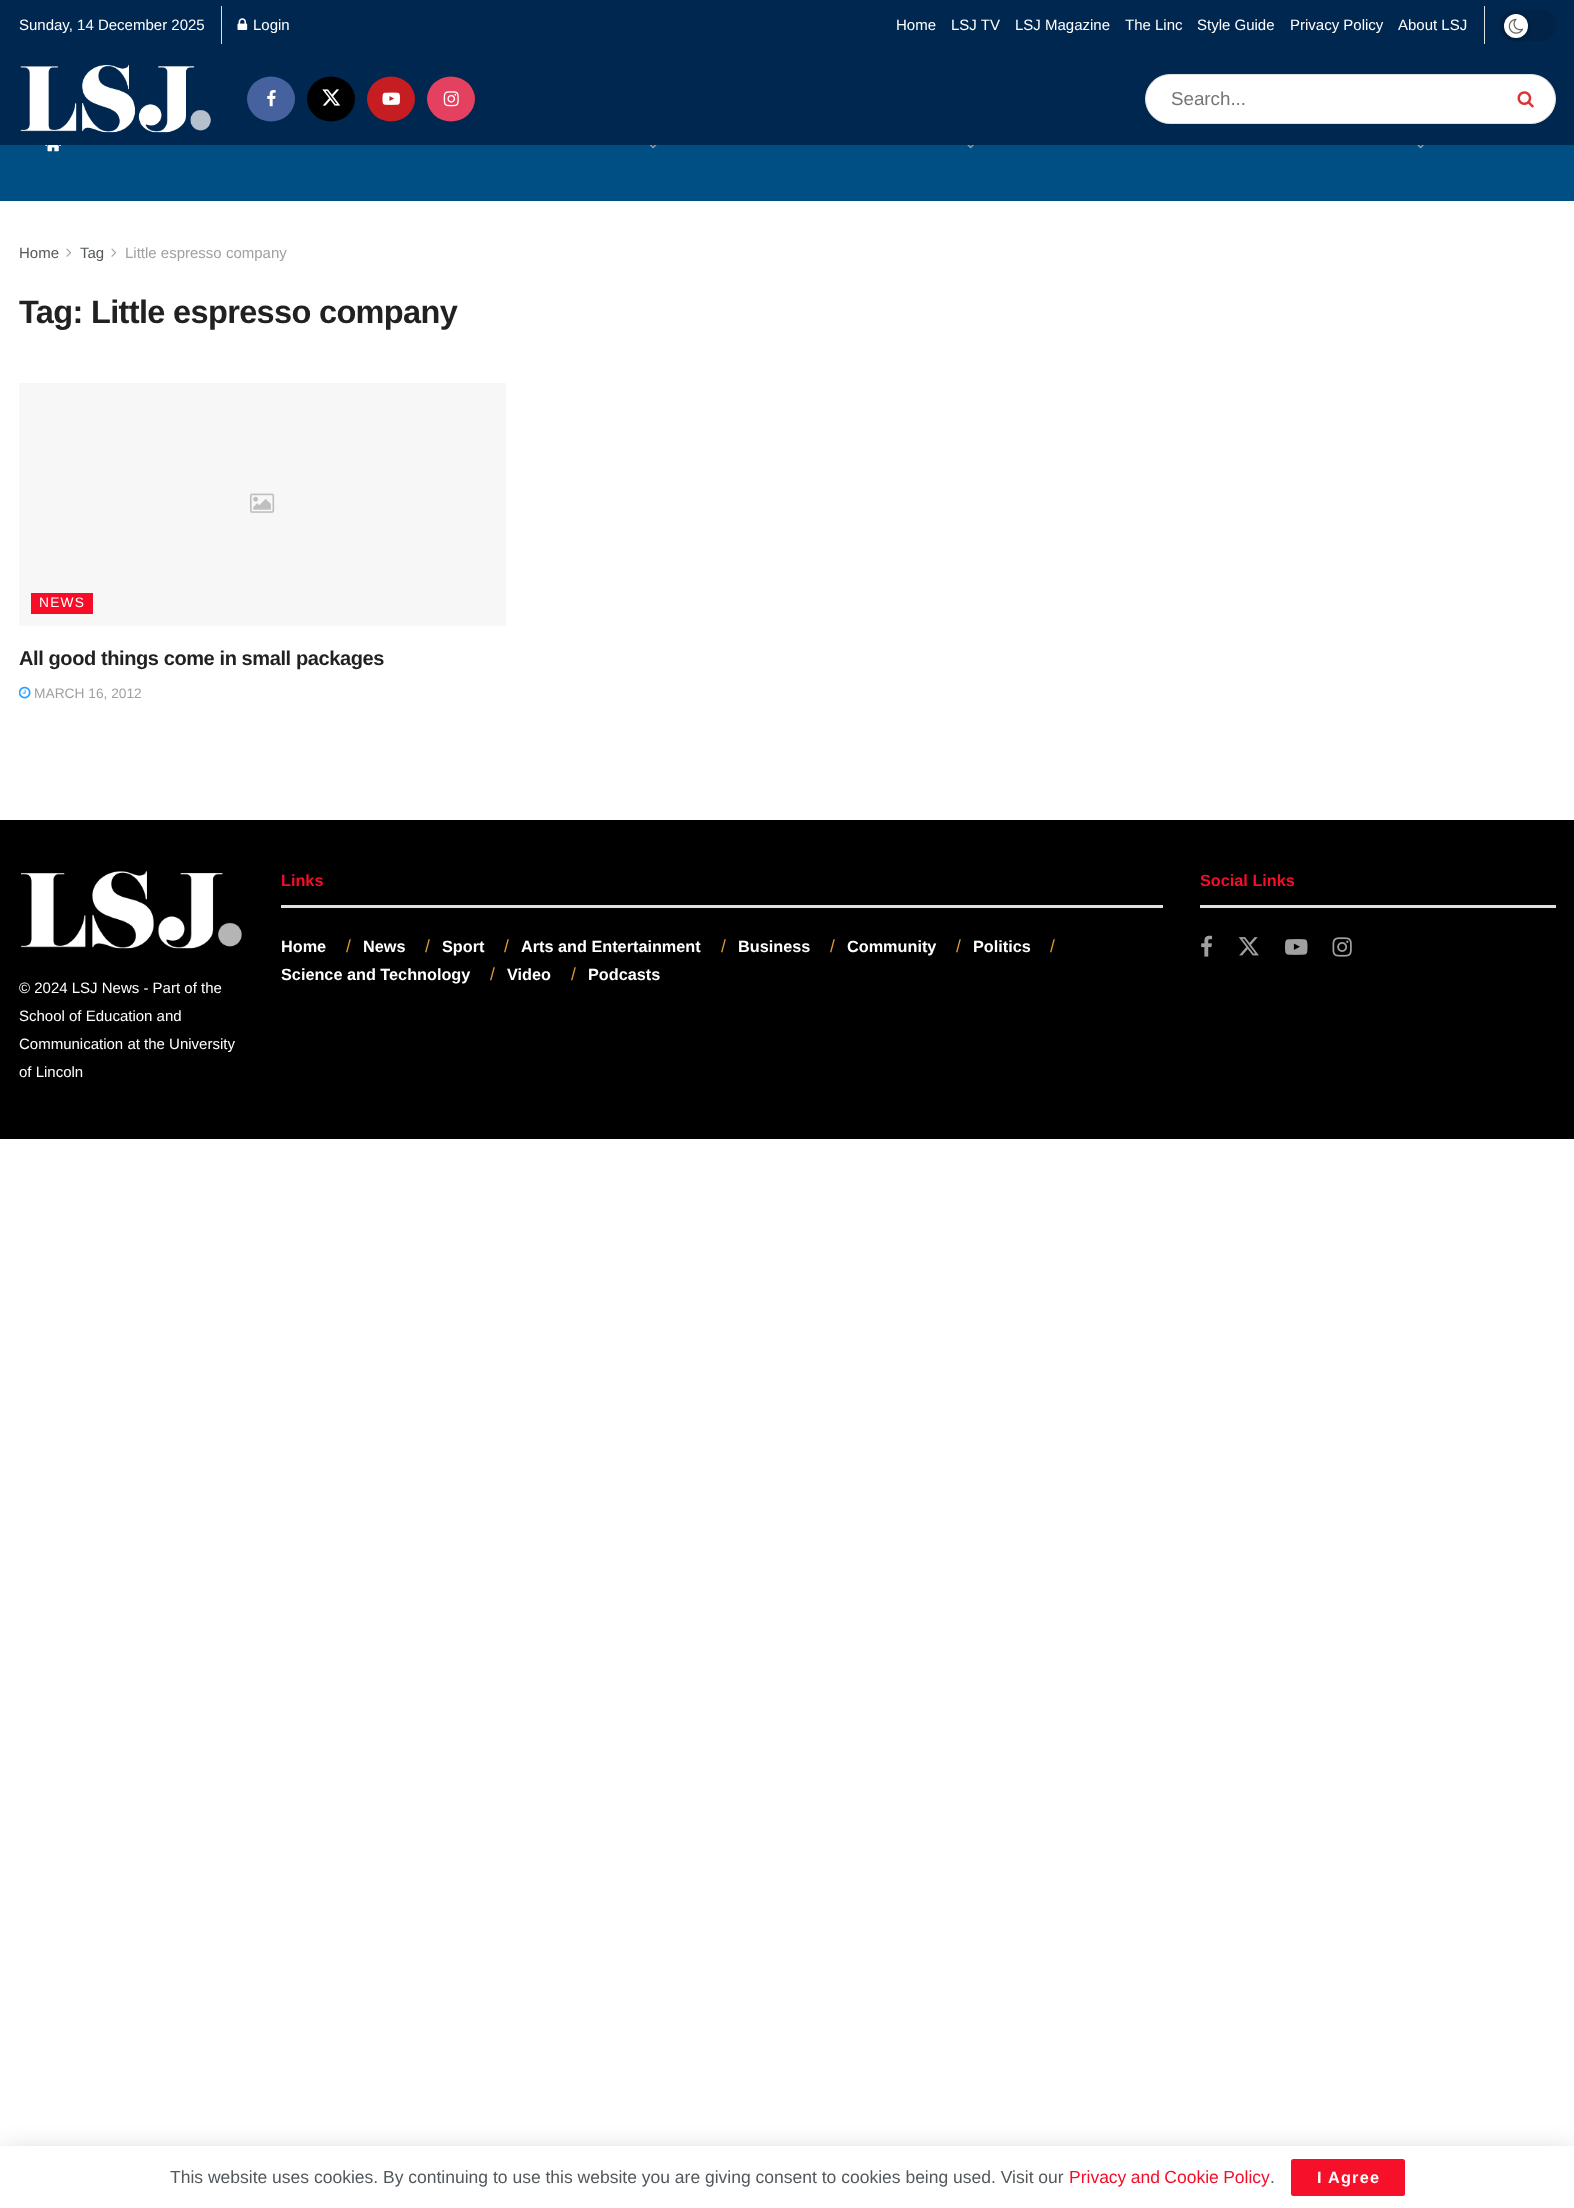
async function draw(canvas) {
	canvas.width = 1574;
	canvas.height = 2208;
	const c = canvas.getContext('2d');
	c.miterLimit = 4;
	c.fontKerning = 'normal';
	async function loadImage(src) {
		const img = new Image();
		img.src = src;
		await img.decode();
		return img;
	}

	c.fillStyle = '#fff';
	c.fillRect(0, 0, 1574, 2208);
	c.fillStyle = '#00274f';
	c.fillRect(0, 0, 1574, 145);
	c.font = '15px Liberation Sans';
	c.fillStyle = '#fff';
	c.fillText('Sunday, 14 December 2025', 19, 30);
	c.fillStyle = '#e0e0e0';
	c.fillRect(221, 6, 1, 38);
	c.drawImage(await loadImage('img1.png'), 237, 18, 11, 12);
	c.fillStyle = '#fff';
	for (const [text, x, y] of [
		['Login', 253, 30],
		['Home', 896, 30],
		['LSJ TV', 951, 30],
		['LSJ Magazine', 1015, 30],
		['The Linc', 1125, 30],
		['Style Guide', 1197, 30],
		['Privacy Policy', 1290, 30],
		['About LSJ', 1398, 30],
	]) {
		c.fillText(text, x, y);
	}
	c.fillStyle = '#e0e0e0';
	c.fillRect(1484, 6, 1, 38);
	c.fillStyle = '#002347';
	c.beginPath();
	c.roundRect(1500, 10, 56, 31, 15.5);
	c.fill();
	c.fillStyle = '#0000004d';
	c.filter = 'blur(2px)';
	c.beginPath();
	c.roundRect(1504, 15, 24, 24, 12);
	c.fill();
	c.filter = 'none';
	c.fillStyle = '#fff';
	c.beginPath();
	c.arc(1516, 26, 12, 0, 2 * Math.PI);
	c.fill();
	c.drawImage(await loadImage('img2.png'), 1508, 18, 16, 16);
	c.drawImage(await loadImage('img3.png'), 20, 64, 191, 69);
	c.fillStyle = '#45629f';
	c.beginPath();
	c.ellipse(271, 99, 24, 22.5, 0, 0, 2 * Math.PI);
	c.fill();
	c.drawImage(await loadImage('img4.png'), 267, 90, 9, 17);
	c.fillStyle = '#000';
	c.beginPath();
	c.ellipse(331, 99, 24, 22.5, 0, 0, 2 * Math.PI);
	c.fill();
	c.drawImage(await loadImage('img5.png'), 322, 89, 19, 17);
	c.fillStyle = '#c61d23';
	c.beginPath();
	c.ellipse(391, 99, 24, 22.5, 0, 0, 2 * Math.PI);
	c.fill();
	c.drawImage(await loadImage('img6.png'), 382, 92, 18, 13);
	c.fillStyle = '#e4405f';
	c.beginPath();
	c.ellipse(451, 99, 24, 22.5, 0, 0, 2 * Math.PI);
	c.fill();
	c.drawImage(await loadImage('img7.png'), 443, 91, 16, 16);
	c.fillStyle = '#fff';
	c.beginPath();
	c.roundRect(1145.5, 74.5, 410, 49, 24.5);
	c.fill();
	c.strokeStyle = '#e0e0e0';
	c.stroke();
	c.font = '18.75px Liberation Sans';
	c.fillStyle = '#757575';
	c.fillText('Search...', 1171, 105);
	c.drawImage(await loadImage('img8.png'), 1517, 91, 17, 17);
	c.fillStyle = '#004f84';
	c.fillRect(0, 145, 1574, 56);
	c.drawImage(await loadImage('img9.png'), 45, 145, 16, 7);
	c.drawImage(await loadImage('img10.png'), 649, 145, 8, 4);
	c.drawImage(await loadImage('img11.png'), 967, 145, 7, 4);
	c.drawImage(await loadImage('img11.png'), 1417, 145, 7, 4);
	c.font = '15px Liberation Sans';
	c.fillStyle = '#53585c';
	c.fillText('Home', 19, 258);
	c.drawImage(await loadImage('img12.png'), 66, 248, 6, 9);
	c.fillText('Tag', 80, 258);
	c.drawImage(await loadImage('img12.png'), 111, 248, 6, 9);
	c.fillStyle = '#a0a0a0';
	c.fillText('Little espresso company', 125, 258);
	c.letterSpacing = '-0.65px';
	c.font = 'bold 32.5px Liberation Sans';
	c.fillStyle = '#212121';
	c.fillText('Tag: Little espresso company', 19, 323);
	c.fillStyle = '#f7f7f7';
	c.fillRect(19, 383, 487, 243);
	c.drawImage(await loadImage('img13.png'), 250, 493, 25, 20);
	c.fillStyle = '#f70d28';
	c.fillRect(31, 593, 62, 21);
	c.letterSpacing = '1.25px';
	c.font = '13.75px Liberation Sans';
	c.fillStyle = '#fff';
	c.fillText('NEWS', 39, 607);
	c.letterSpacing = '-0.4px';
	c.font = 'bold 20px Liberation Sans';
	c.fillStyle = '#212121';
	c.fillText('All good things come in small packages', 19, 665);
	c.drawImage(await loadImage('img14.png'), 19, 686, 12, 13);
	c.letterSpacing = '0px';
	c.font = '13.75px Liberation Sans';
	c.fillStyle = '#a0a0a0';
	c.fillText('MARCH 16, 2012', 34, 698);
	c.fillStyle = '#000';
	c.fillRect(0, 820, 1574, 319);
	c.fillStyle = '#e0e0e0';
	c.fillRect(281, 905, 882, 3);
	c.font = 'bold 16.25px Liberation Sans';
	c.fillStyle = '#f70d28';
	c.fillText('Links', 281, 886);
	c.fillStyle = '#fff';
	c.fillText('Home', 281, 952);
	c.font = '17.5px Liberation Sans';
	c.fillStyle = '#d93';
	c.fillText('/', 346, 952);
	c.font = 'bold 16.25px Liberation Sans';
	c.fillStyle = '#fff';
	c.fillText('News', 363, 952);
	c.font = '17.5px Liberation Sans';
	c.fillStyle = '#d93';
	c.fillText('/', 425, 952);
	c.font = 'bold 16.25px Liberation Sans';
	c.fillStyle = '#fff';
	c.fillText('Sport', 442, 952);
	c.font = '17.5px Liberation Sans';
	c.fillStyle = '#d93';
	c.fillText('/', 504, 952);
	c.font = 'bold 16.25px Liberation Sans';
	c.fillStyle = '#fff';
	c.fillText('Arts and Entertainment', 521, 952);
	c.font = '17.5px Liberation Sans';
	c.fillStyle = '#d93';
	c.fillText('/', 721, 952);
	c.font = 'bold 16.25px Liberation Sans';
	c.fillStyle = '#fff';
	c.fillText('Business', 738, 952);
	c.font = '17.5px Liberation Sans';
	c.fillStyle = '#d93';
	c.fillText('/', 830, 952);
	c.font = 'bold 16.25px Liberation Sans';
	c.fillStyle = '#fff';
	c.fillText('Community', 847, 952);
	c.font = '17.5px Liberation Sans';
	c.fillStyle = '#d93';
	c.fillText('/', 956, 952);
	c.font = 'bold 16.25px Liberation Sans';
	c.fillStyle = '#fff';
	c.fillText('Politics', 973, 952);
	c.font = '17.5px Liberation Sans';
	c.fillStyle = '#d93';
	c.fillText('/', 1050, 952);
	c.font = 'bold 16.25px Liberation Sans';
	c.fillStyle = '#fff';
	c.fillText('Science and Technology', 281, 980);
	c.font = '17.5px Liberation Sans';
	c.fillStyle = '#d93';
	c.fillText('/', 490, 980);
	c.font = 'bold 16.25px Liberation Sans';
	c.fillStyle = '#fff';
	c.fillText('Video', 507, 980);
	c.font = '17.5px Liberation Sans';
	c.fillStyle = '#d93';
	c.fillText('/', 571, 980);
	c.font = 'bold 16.25px Liberation Sans';
	c.fillStyle = '#fff';
	c.fillText('Podcasts', 588, 980);
	c.fillStyle = '#e0e0e0';
	c.fillRect(1200, 905, 356, 3);
	c.fillStyle = '#f70d28';
	c.fillText('Social Links', 1200, 886);
	c.drawImage(await loadImage('img15.png'), 1201, 935, 12, 22);
	c.drawImage(await loadImage('img16.png'), 1238, 937, 21, 19);
	c.drawImage(await loadImage('img17.png'), 1285, 939, 23, 16);
	c.drawImage(await loadImage('img18.png'), 1332, 937, 20, 20);
	c.drawImage(await loadImage('img19.png'), 21, 871, 221, 78);
	c.font = '15px Liberation Sans';
	c.fillStyle = '#fff';
	for (const [text, x, y] of [
		['© 2024 LSJ News - Part of the', 19, 993],
		['School of Education and', 19, 1021],
		['Communication at the University', 19, 1049],
		['of Lincoln', 19, 1077],
	]) {
		c.fillText(text, x, y);
	}
	c.fillStyle = '#03030326';
	c.filter = 'blur(12.5px)';
	c.beginPath();
	c.rect(0, 2149, 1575, 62);
	c.fill();
	c.filter = 'none';
	c.fillStyle = '#03030333';
	c.filter = 'blur(0.5px)';
	c.beginPath();
	c.rect(0, 2146, 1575, 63);
	c.fill();
	c.filter = 'none';
	c.fillStyle = '#fff';
	c.fillRect(0, 2146, 1574, 62);
	c.font = '17.5px Liberation Sans';
	c.fillStyle = '#53585c';
	c.fillText('This website uses cookies. By continuing to use this website you are giving consent to cookies being used. Visit our', 170, 2183);
	c.wordSpacing = '-0.5px';
	c.fillStyle = '#f70d28';
	c.fillText('Privacy and Cookie Policy', 1069, 2183);
	c.wordSpacing = '0px';
	c.fillStyle = '#53585c';
	c.fillText('.', 1270, 2183);
	c.fillStyle = '#f7102a';
	c.beginPath();
	c.roundRect(1291, 2159, 114, 37, 2.5);
	c.fill();
	c.letterSpacing = '1.25px';
	c.font = 'bold 16.25px Liberation Sans';
	c.fillStyle = '#fff';
	c.fillText('I Agree', 1317, 2183);
}

draw(document.querySelector('canvas'));
